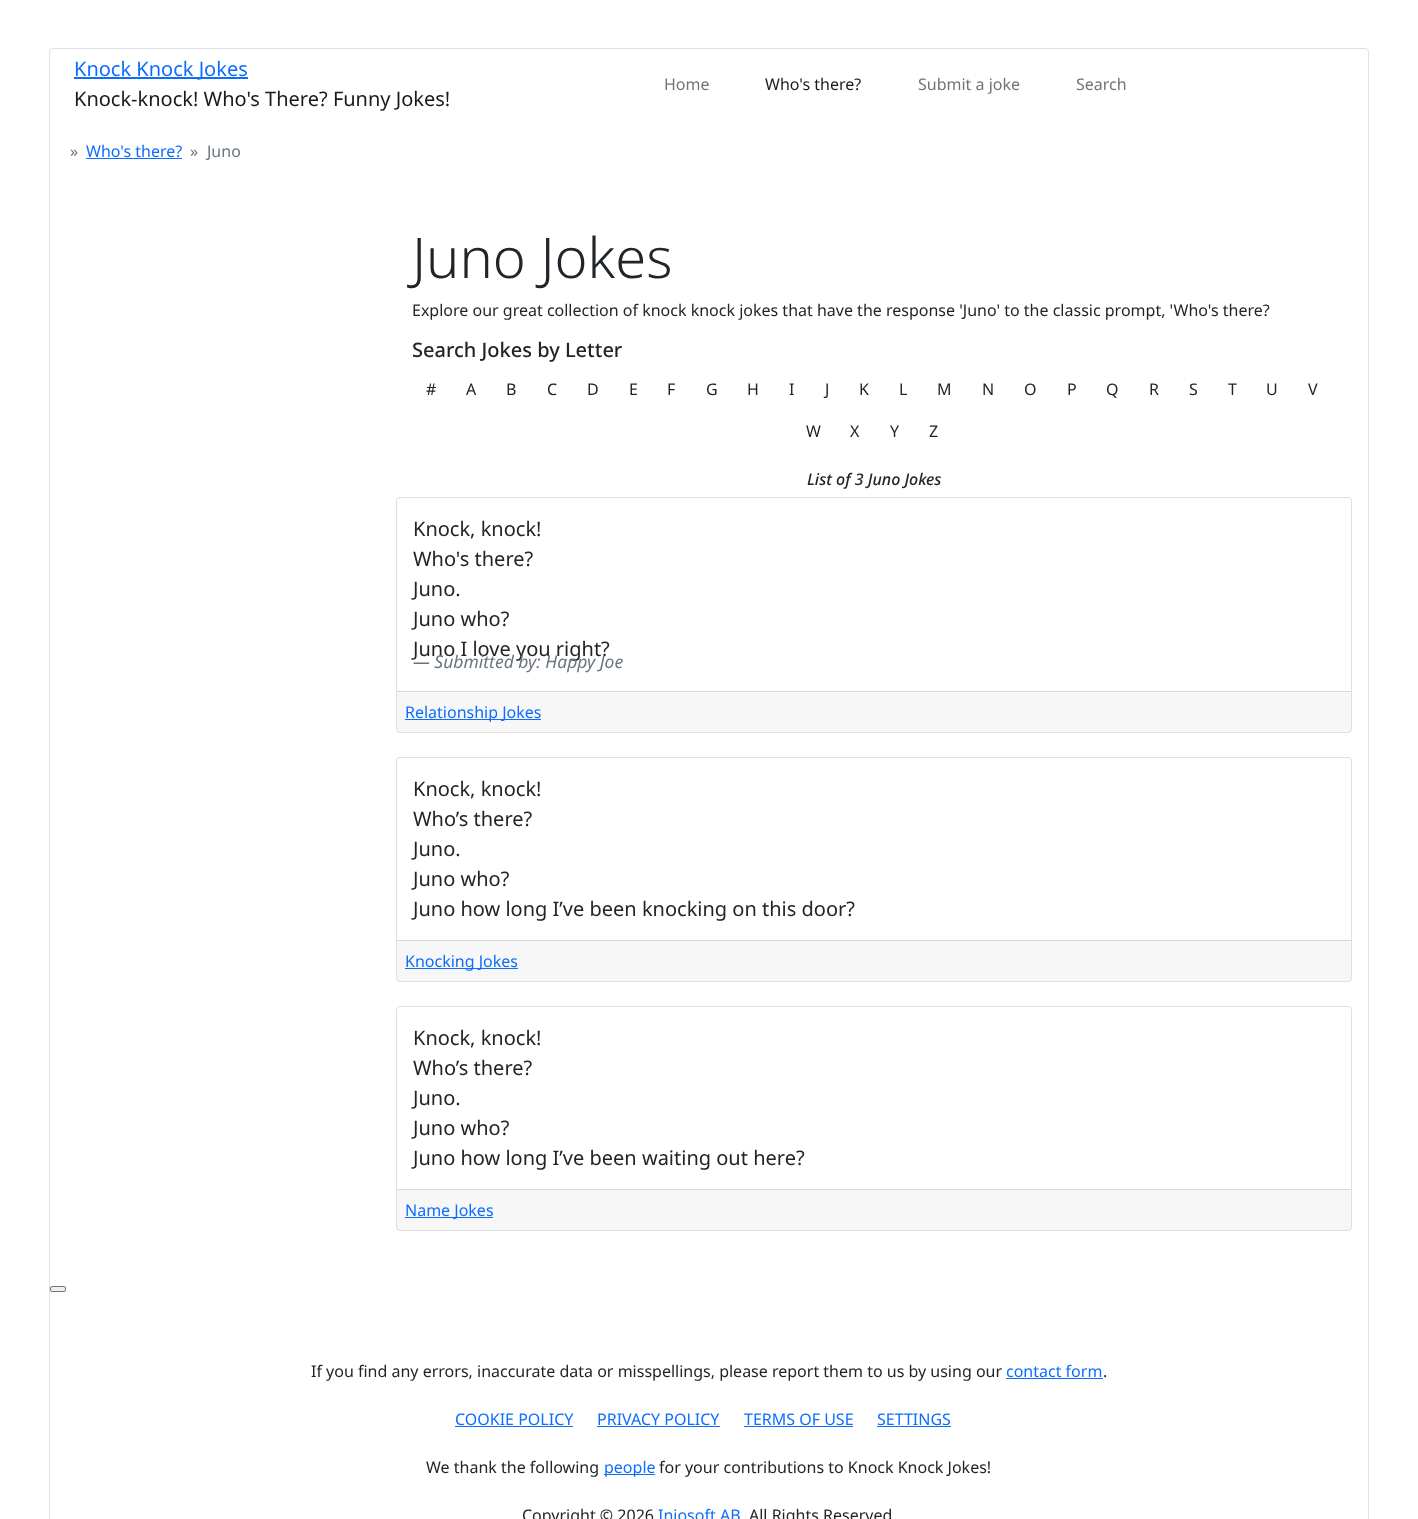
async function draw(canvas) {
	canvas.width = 1418;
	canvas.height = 1519;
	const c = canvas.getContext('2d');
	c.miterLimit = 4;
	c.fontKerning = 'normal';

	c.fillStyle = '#fff';
	c.fillRect(0, 0, 1418, 1519);
	c.beginPath();
	c.roundRect(49.5, 48.5, 1319, 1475, 3.5);
	c.strokeStyle = '#dee2e6';
	c.stroke();
	c.fillStyle = '#0d6efd';
	c.fillRect(74, 77, 174, 2);
	c.font = '20px Noto Sans';
	c.fillText('Knock Knock Jokes', 74, 76);
	c.fillStyle = '#1a1a1a';
	c.fillText('Knock-knock! Who\'s There? Funny Jokes!', 74, 106);
	c.font = '16px Noto Sans';
	c.fillStyle = '#737373';
	c.fillText('Home', 664, 90);
	c.fillStyle = '#1a1a1a';
	c.fillText('Who\'s there?', 765, 90);
	c.fillStyle = '#737373';
	c.fillText('Submit a joke', 918, 90);
	c.fillText('Search', 1076, 90);
	c.fillStyle = '#6c757d';
	c.fillText('»', 70, 157);
	c.fillStyle = '#0d6efd';
	c.fillText('Who\'s there?', 86, 157);
	c.fillRect(86, 158, 96, 1);
	c.fillStyle = '#6c757d';
	c.fillText('»', 190, 157);
	c.fillText('Juno', 207, 157);
	c.font = '300 56px Noto Sans';
	c.fillStyle = '#212529';
	c.fillText('Juno Jokes', 412, 278);
	c.font = '16px Noto Sans';
	c.fillText('Explore our great collection of knock knock jokes that have the response \'Juno\' to the classic prompt, \'Who\'s there?', 412, 316);
	c.font = '500 20px Noto Sans';
	c.fillText('Search Jokes by Letter', 412, 357);
	c.font = '16px Noto Sans';
	for (const [text, x, y] of [
		['#', 426, 395],
		['A', 466, 395],
		['B', 506, 395],
		['C', 547, 395],
		['D', 587, 395],
		['E', 629, 395],
		['F', 667, 395],
		['G', 706, 395],
		['H', 747, 395],
		['I', 789, 395],
		['J', 825, 395],
		['K', 859, 395],
		['L', 899, 395],
		['M', 937, 395],
		['N', 982, 395],
		['O', 1024, 395],
		['P', 1067, 395],
		['Q', 1106, 395],
		['R', 1149, 395],
		['S', 1189, 395],
		['T', 1228, 395],
		['U', 1266, 395],
		['V', 1308, 395],
		['W', 806, 437],
		['X', 850, 437],
		['Y', 890, 437],
		['Z', 929, 437],
	]) {
		c.fillText(text, x, y);
	}
	c.font = 'italic 500 16px Noto Sans';
	c.fillText('List of 3 Juno Jokes', 807, 485);
	c.beginPath();
	c.roundRect(396.5, 497.5, 955, 235, 3.5);
	c.strokeStyle = '#dfdfdf';
	c.stroke();
	c.font = '20px Noto Sans';
	for (const [text, x, y] of [
		['Knock, knock!', 413, 536],
		['Who\'s there?', 413, 566],
		['Juno.', 413, 596],
		['Juno who?', 413, 626],
		['Juno I love you right?', 413, 656],
	]) {
		c.fillText(text, x, y);
	}
	c.font = 'italic 17.5px Noto Sans';
	c.fillStyle = '#6c757d';
	c.fillText('— Submitted by: Happy Joe', 413, 668);
	for (const [x, y, w, h, color] of [
		[397, 692, 954, 40, '#00000008'],
		[397, 691, 954, 1, '#d8d8d8'],
		[405, 719, 136, 1, '#0d6efd'],
	]) {
		c.fillStyle = color;
		c.fillRect(x, y, w, h);
	}
	c.font = '16px Noto Sans';
	c.fillText('Relationship Jokes', 405, 718);
	c.beginPath();
	c.roundRect(396.5, 757.5, 955, 224, 3.5);
	c.stroke();
	c.font = '20px Noto Sans';
	c.fillStyle = '#212529';
	for (const [text, x, y] of [
		['Knock, knock!', 413, 796],
		['Who’s there?', 413, 826],
		['Juno.', 413, 856],
		['Juno who?', 413, 886],
		['Juno how long I’ve been knocking on this door?', 413, 916],
	]) {
		c.fillText(text, x, y);
	}
	for (const [x, y, w, h, color] of [
		[397, 941, 954, 40, '#00000008'],
		[397, 940, 954, 1, '#d8d8d8'],
		[405, 968, 113, 1, '#0d6efd'],
	]) {
		c.fillStyle = color;
		c.fillRect(x, y, w, h);
	}
	c.font = '16px Noto Sans';
	c.fillText('Knocking Jokes', 405, 967);
	c.beginPath();
	c.roundRect(396.5, 1006.5, 955, 224, 3.5);
	c.stroke();
	c.font = '20px Noto Sans';
	c.fillStyle = '#212529';
	for (const [text, x, y] of [
		['Knock, knock!', 413, 1045],
		['Who’s there?', 413, 1075],
		['Juno.', 413, 1105],
		['Juno who?', 413, 1135],
		['Juno how long I’ve been waiting out here?', 413, 1165],
	]) {
		c.fillText(text, x, y);
	}
	for (const [x, y, w, h, color] of [
		[397, 1190, 954, 40, '#00000008'],
		[397, 1189, 954, 1, '#d8d8d8'],
		[405, 1217, 88, 1, '#0d6efd'],
	]) {
		c.fillStyle = color;
		c.fillRect(x, y, w, h);
	}
	c.font = '16px Noto Sans';
	c.fillText('Name Jokes', 405, 1216);
	c.fillStyle = '#efefef';
	c.beginPath();
	c.roundRect(50.5, 1286.5, 15, 5, 1.5);
	c.fill();
	c.strokeStyle = '#767676';
	c.stroke();
	c.fillStyle = '#212529';
	c.fillText('If you find any errors, inaccurate data or misspellings, please report them to us by using our', 311, 1377);
	c.fillStyle = '#0d6efd';
	c.fillText('contact form', 1006, 1377);
	c.fillRect(1006, 1378, 97, 1);
	c.fillStyle = '#212529';
	c.fillText('.', 1103, 1377);
	c.fillStyle = '#0d6efd';
	c.fillText('COOKIE POLICY', 455, 1425);
	c.fillRect(455, 1426, 118, 1);
	c.fillText('PRIVACY POLICY', 597, 1425);
	c.fillRect(597, 1426, 123, 1);
	c.fillText('TERMS OF USE', 744, 1425);
	c.fillRect(744, 1426, 109, 1);
	c.fillText('SETTINGS', 877, 1425);
	c.fillRect(877, 1426, 74, 1);
	c.fillStyle = '#212529';
	c.fillText('We thank the following', 426, 1473);
	c.fillStyle = '#0d6efd';
	c.fillRect(604, 1474, 51, 1);
	c.fillText('people', 604, 1473);
	c.fillStyle = '#212529';
	c.fillText('for your contributions to Knock Knock Jokes!', 659, 1473);
	c.fillText('Copyright © 2026', 522, 1521);
	c.fillStyle = '#0d6efd';
	c.fillText('Injosoft AB', 658, 1521);
	c.fillStyle = '#212529';
	c.fillText('All Rights Reserved', 749, 1521);
}

draw(document.querySelector('canvas'));
